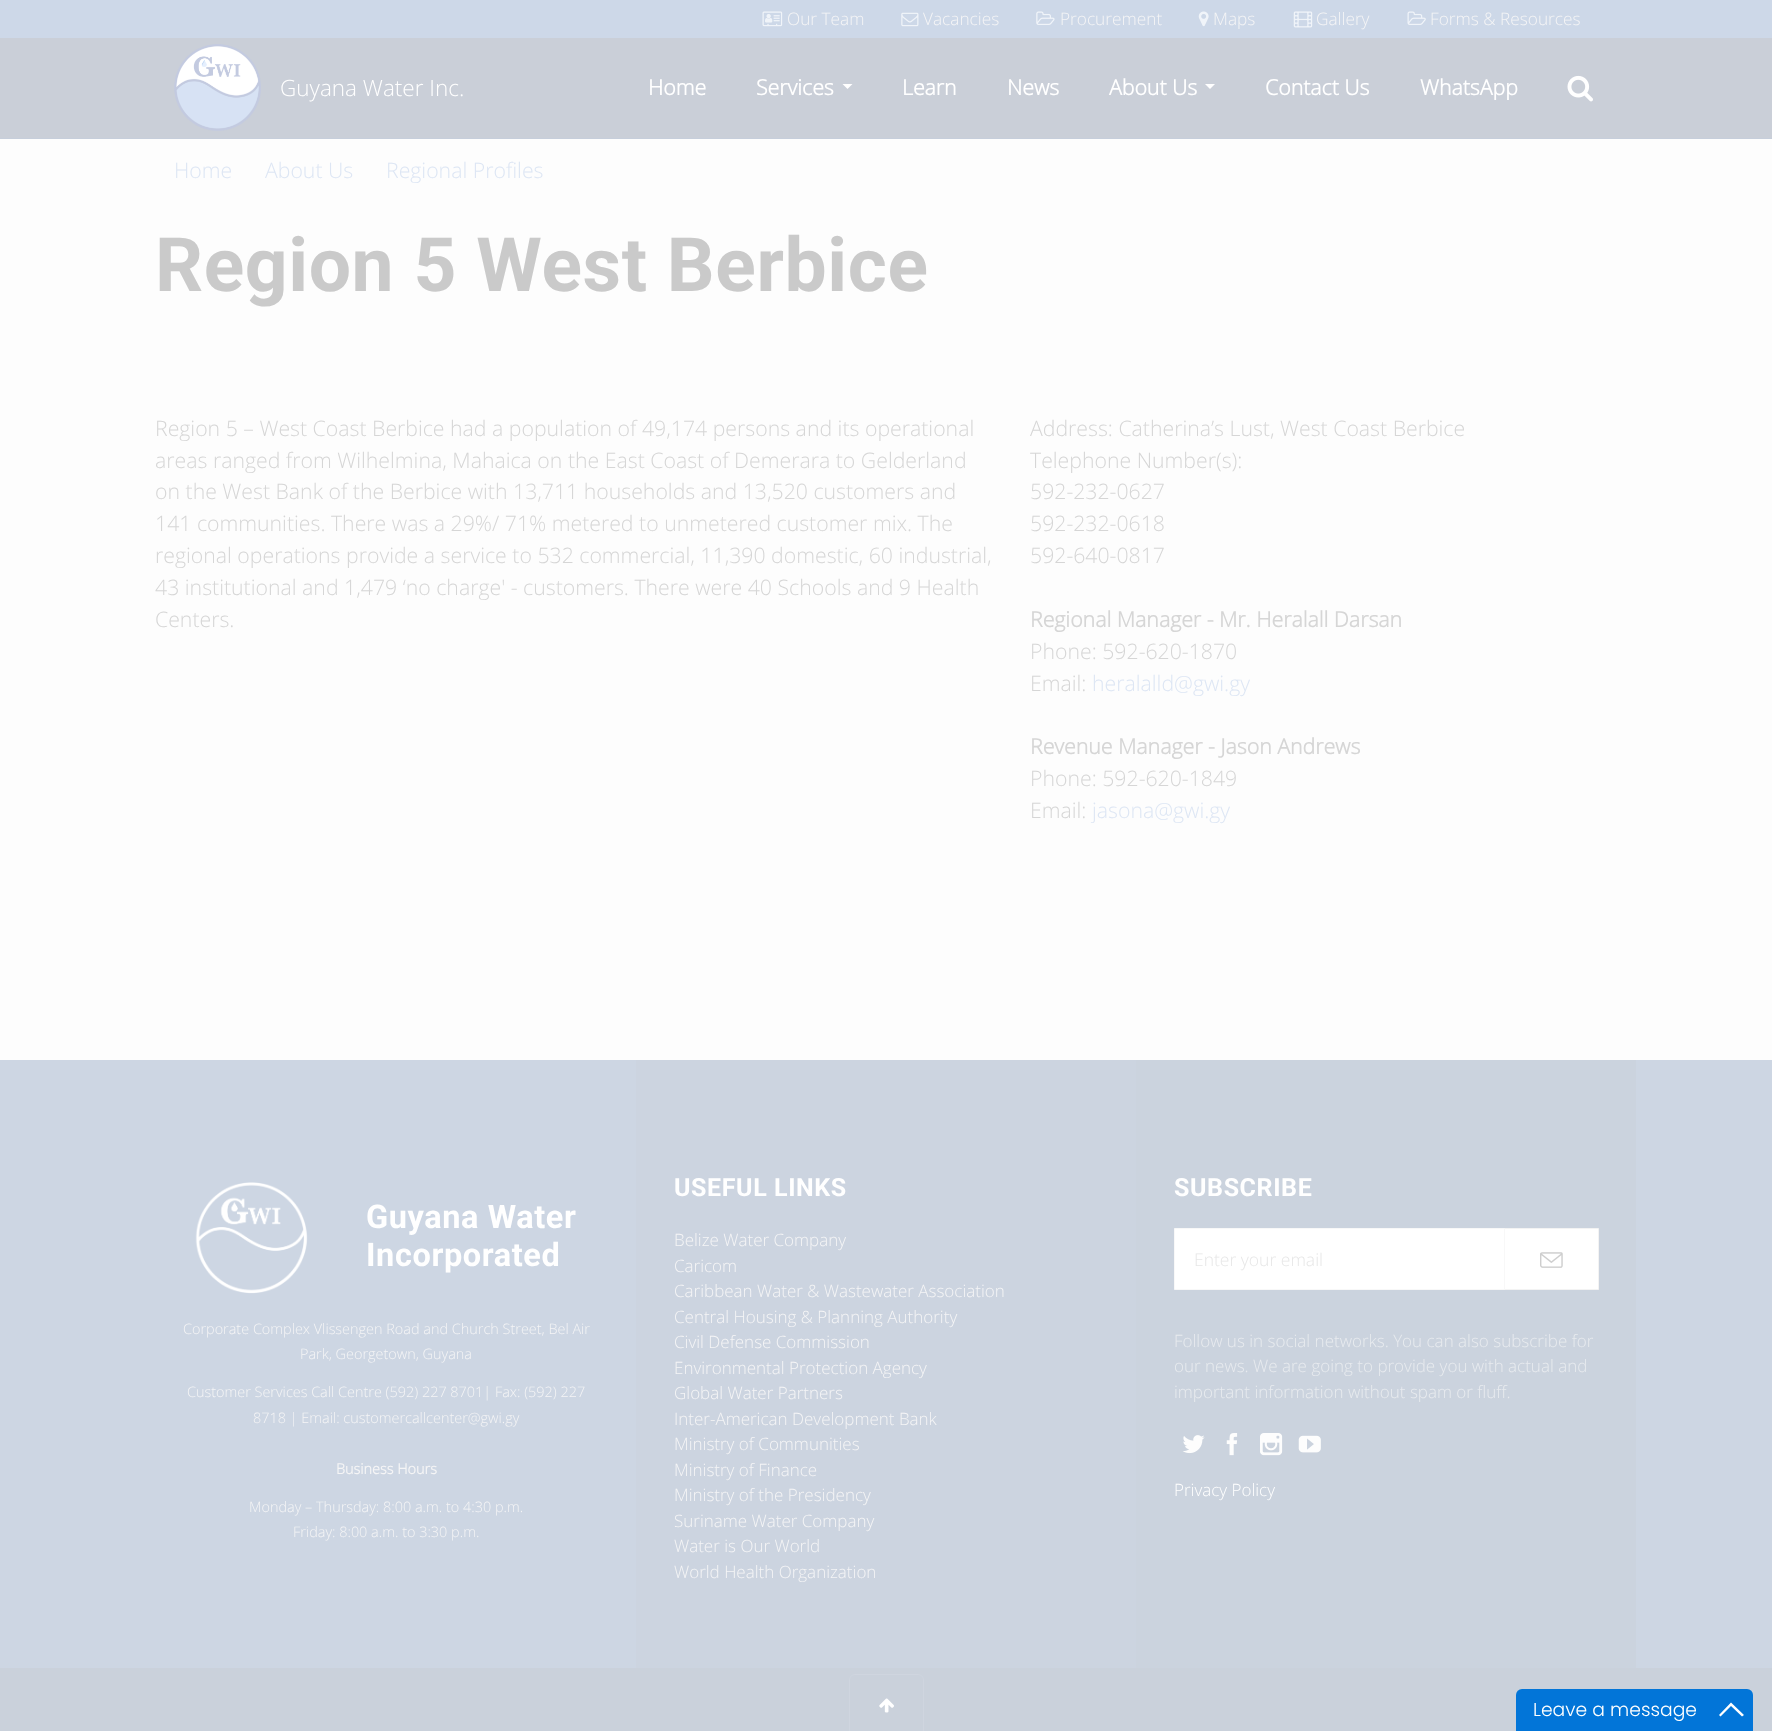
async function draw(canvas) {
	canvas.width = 1772;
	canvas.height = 1731;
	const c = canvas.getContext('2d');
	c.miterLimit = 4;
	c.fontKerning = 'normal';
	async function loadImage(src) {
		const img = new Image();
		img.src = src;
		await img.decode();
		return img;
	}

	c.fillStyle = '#fdfdfd';
	c.fillRect(0, 0, 1772, 1731);
	for (const [x, y, w, h, color] of [
		[0, 38, 1772, 100, '#cacfd8'],
		[0, 138, 1772, 1, '#c6cedb'],
		[0, 0, 1772, 38, '#cdd8e8'],
	]) {
		c.fillStyle = color;
		c.fillRect(x, y, w, h);
	}
	c.drawImage(await loadImage('img1.png'), 762, 11, 21, 16);
	c.font = '300 17.25px Open Sans';
	c.fillStyle = '#f5f5f6';
	c.fillText('Our Team', 787, 25);
	c.drawImage(await loadImage('img2.png'), 901, 12, 18, 15);
	c.fillText('Vacancies', 923, 25);
	c.drawImage(await loadImage('img3.png'), 1036, 11, 19, 14);
	c.fillText('Procurement', 1060, 25);
	c.drawImage(await loadImage('img4.png'), 1198, 11, 11, 16);
	c.fillText('Maps', 1213, 25);
	c.drawImage(await loadImage('img5.png'), 1293, 11, 20, 17);
	c.fillText('Gallery', 1316, 25);
	c.drawImage(await loadImage('img6.png'), 1407, 11, 19, 14);
	c.fillText('Forms & Resources', 1430, 25);
	c.drawImage(await loadImage('img7.png'), 174, 44, 87, 87);
	c.font = '300 22.5px Open Sans';
	c.fillStyle = '#fff';
	c.fillText('Guyana Water Inc.', 280, 96);
	c.font = 'bold 21.25px Open Sans';
	c.fillText('Home', 648, 95);
	c.fillText('Services', 756, 95);
	c.beginPath();
	c.moveTo(842.5, 84);
	c.lineTo(852.5, 84);
	c.lineTo(847.5, 89);
	c.closePath();
	c.fill();
	for (const [text, x, y] of [
		['Learn', 902, 95],
		['News', 1007, 95],
		['About Us', 1109, 95],
	]) {
		c.fillText(text, x, y);
	}
	c.beginPath();
	c.moveTo(1205, 84);
	c.lineTo(1215, 84);
	c.lineTo(1210, 89);
	c.closePath();
	c.fill();
	c.fillText('Contact Us', 1265, 95);
	c.fillText('WhatsApp', 1420, 95);
	c.drawImage(await loadImage('img8.png'), 1567, 75, 26, 27);
	c.font = '300 21.25px Open Sans';
	c.fillStyle = '#dde6f4';
	for (const [text, x, y] of [
		['Home', 174, 178],
		['About Us', 265, 178],
		['Regional Profiles', 386, 178],
	]) {
		c.fillText(text, x, y);
	}
	c.letterSpacing = '0.6px';
	c.font = 'bold 75px Roboto';
	c.fillStyle = '#cacaca';
	c.fillText('Region 5 West Berbice', 155, 291);
	c.letterSpacing = '0px';
	c.font = '300 21.25px Open Sans';
	c.fillStyle = '#d6d6d6';
	for (const [text, x, y] of [
		['Region 5 – West Coast Berbice had a population of 49,174 persons and its operational', 155, 436],
		['areas ranged from Wilhelmina, Mahaica on the East Coast of Demerara to Gelderland', 155, 468],
		['on the West Bank of the Berbice with 13,711 households and 13,520 customers and', 155, 499],
		['141 communities. There was a 29%/ 71% metered to unmetered customer mix. The', 155, 531],
		['regional operations provide a service to 532 commercial, 11,390 domestic, 60 industrial,', 155, 563],
		['43 institutional and 1,479 ‘no charge\' - customers. There were 40 Schools and 9 Health', 155, 595],
		['Centers.', 155, 627],
		['Address: Catherina’s Lust, West Coast Berbice', 1030, 436],
		['Telephone Number(s):', 1030, 468],
		['592-232-0627', 1030, 499],
		['592-232-0618', 1030, 531],
		['592-640-0817', 1030, 563],
	]) {
		c.fillText(text, x, y);
	}
	c.font = 'bold 21.25px Open Sans';
	c.fillText('Regional Manager - Mr. Heralall Darsan', 1030, 627);
	c.font = '300 21.25px Open Sans';
	c.fillText('Phone: 592-620-1870', 1030, 659);
	c.fillText('Email:', 1030, 691);
	c.fillStyle = '#dde6f4';
	c.fillText('heralalld@gwi.gy', 1092, 691);
	c.font = 'bold 21.25px Open Sans';
	c.fillStyle = '#d6d6d6';
	c.fillText('Revenue Manager - Jason Andrews', 1030, 754);
	c.font = '300 21.25px Open Sans';
	c.fillText('Phone: 592-620-1849', 1030, 786);
	c.fillText('Email:', 1030, 818);
	c.fillStyle = '#dde6f4';
	c.fillText('jasona@gwi.gy', 1092, 818);
	c.fillStyle = '#cdd6e3';
	c.fillRect(0, 1060, 1772, 608);
	c.drawImage(await loadImage('img9.png'), 195, 1182, 113, 112);
	c.letterSpacing = '0.6px';
	c.font = 'bold 32.5px Roboto';
	c.fillStyle = '#fff';
	c.fillText('Guyana Water', 366, 1228);
	c.fillText('Incorporated', 366, 1266);
	c.letterSpacing = '0px';
	c.font = '300 14.45px Open Sans';
	c.fillStyle = '#f5f5f6';
	for (const [text, x, y] of [
		['Corporate Complex Vlissengen Road and Church Street, Bel Air', 183, 1334],
		['Park, Georgetown, Guyana', 300, 1359],
		['Customer Services Call Centre (592) 227 8701| Fax: (592) 227', 187, 1397],
		['8718 | Email: customercallcenter@gwi.gy', 253, 1423],
	]) {
		c.fillText(text, x, y);
	}
	c.font = 'bold 14.45px Open Sans';
	c.fillText('Business Hours', 336, 1474);
	c.font = '300 14.45px Open Sans';
	c.fillText('Monday – Thursday: 8:00 a.m. to 4:30 p.m.', 249, 1512);
	c.fillText('Friday: 8:00 a.m. to 3:30 p.m.', 293, 1537);
	c.fillStyle = '#ccd4e0';
	c.fillRect(636, 1060, 500, 608);
	c.letterSpacing = '0.6px';
	c.font = 'bold 25px Roboto';
	c.fillStyle = '#fff';
	c.fillText('USEFUL LINKS', 674, 1196);
	c.letterSpacing = '0px';
	c.font = '300 17px Open Sans';
	c.fillStyle = '#f5f5f6';
	for (const [text, x, y] of [
		['Belize Water Company', 674, 1246],
		['Caricom', 674, 1272],
		['Caribbean Water & Wastewater Association', 674, 1297],
		['Central Housing & Planning Authority', 674, 1323],
		['Civil Defense Commission', 674, 1348],
		['Environmental Protection Agency', 674, 1374],
		['Global Water Partners', 674, 1399],
		['Inter-American Development Bank', 674, 1425],
		['Ministry of Communities', 674, 1450],
		['Ministry of Finance', 674, 1476],
		['Ministry of the Presidency', 674, 1501],
		['Suriname Water Company', 674, 1527],
		['Water is Our World', 674, 1552],
		['World Health Organization', 674, 1578],
	]) {
		c.fillText(text, x, y);
	}
	c.fillStyle = '#cbd3de';
	c.fillRect(1136, 1060, 500, 608);
	c.letterSpacing = '0.6px';
	c.font = 'bold 25px Roboto';
	c.fillStyle = '#fff';
	c.fillText('SUBSCRIBE', 1174, 1196);
	c.beginPath();
	c.rect(1504.5, 1228.5, 94, 61);
	c.fill();
	c.strokeStyle = '#f3f3f3';
	c.stroke();
	c.beginPath();
	c.rect(1174.5, 1228.5, 330, 61);
	c.fill();
	c.strokeStyle = '#f8f8f8';
	c.stroke();
	c.letterSpacing = '0px';
	c.font = '300 17.5px Open Sans';
	c.fillStyle = '#e7e7e7';
	c.fillText('Enter your email', 1194, 1266);
	c.drawImage(await loadImage('img10.png'), 1540, 1252, 23, 16);
	c.font = '300 17px Open Sans';
	c.fillStyle = '#e8ebef';
	for (const [text, x, y] of [
		['Follow us in social networks. You can also subscribe for', 1174, 1347],
		['our news. We are going to provide you with actual and', 1174, 1372],
		['important information without spam or fluff.', 1174, 1398],
	]) {
		c.fillText(text, x, y);
	}
	c.drawImage(await loadImage('img11.png'), 1182, 1435, 23, 19);
	c.drawImage(await loadImage('img12.png'), 1226, 1433, 12, 23);
	c.drawImage(await loadImage('img13.png'), 1260, 1433, 23, 23);
	c.drawImage(await loadImage('img14.png'), 1298, 1435, 23, 18);
	c.fillStyle = '#fff';
	c.fillText('Privacy Policy', 1174, 1496);
	c.fillStyle = '#cad1db';
	c.fillRect(0, 1668, 1772, 63);
	c.beginPath();
	c.roundRect(849.5, 1674.5, 74, 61, 5.5);
	c.strokeStyle = '#cfd5df';
	c.stroke();
	c.drawImage(await loadImage('img15.png'), 879, 1698, 15, 15);
	c.fillStyle = '#0275d8';
	c.beginPath();
	c.roundRect(1516, 1689, 237, 42, [6, 6, 0, 0]);
	c.fill();
	c.font = '300 18.75px Poppins';
	c.fillStyle = '#fff';
	c.fillText('Leave a message', 1533, 1716);
	c.beginPath();
	c.moveTo(1731, 1702.5);
	c.lineTo(1744, 1715);
	c.lineTo(1742, 1716.5);
	c.lineTo(1731, 1706);
	c.lineTo(1720.5, 1716.5);
	c.lineTo(1719, 1715);
	c.closePath();
	c.fill();
}

draw(document.querySelector('canvas'));
